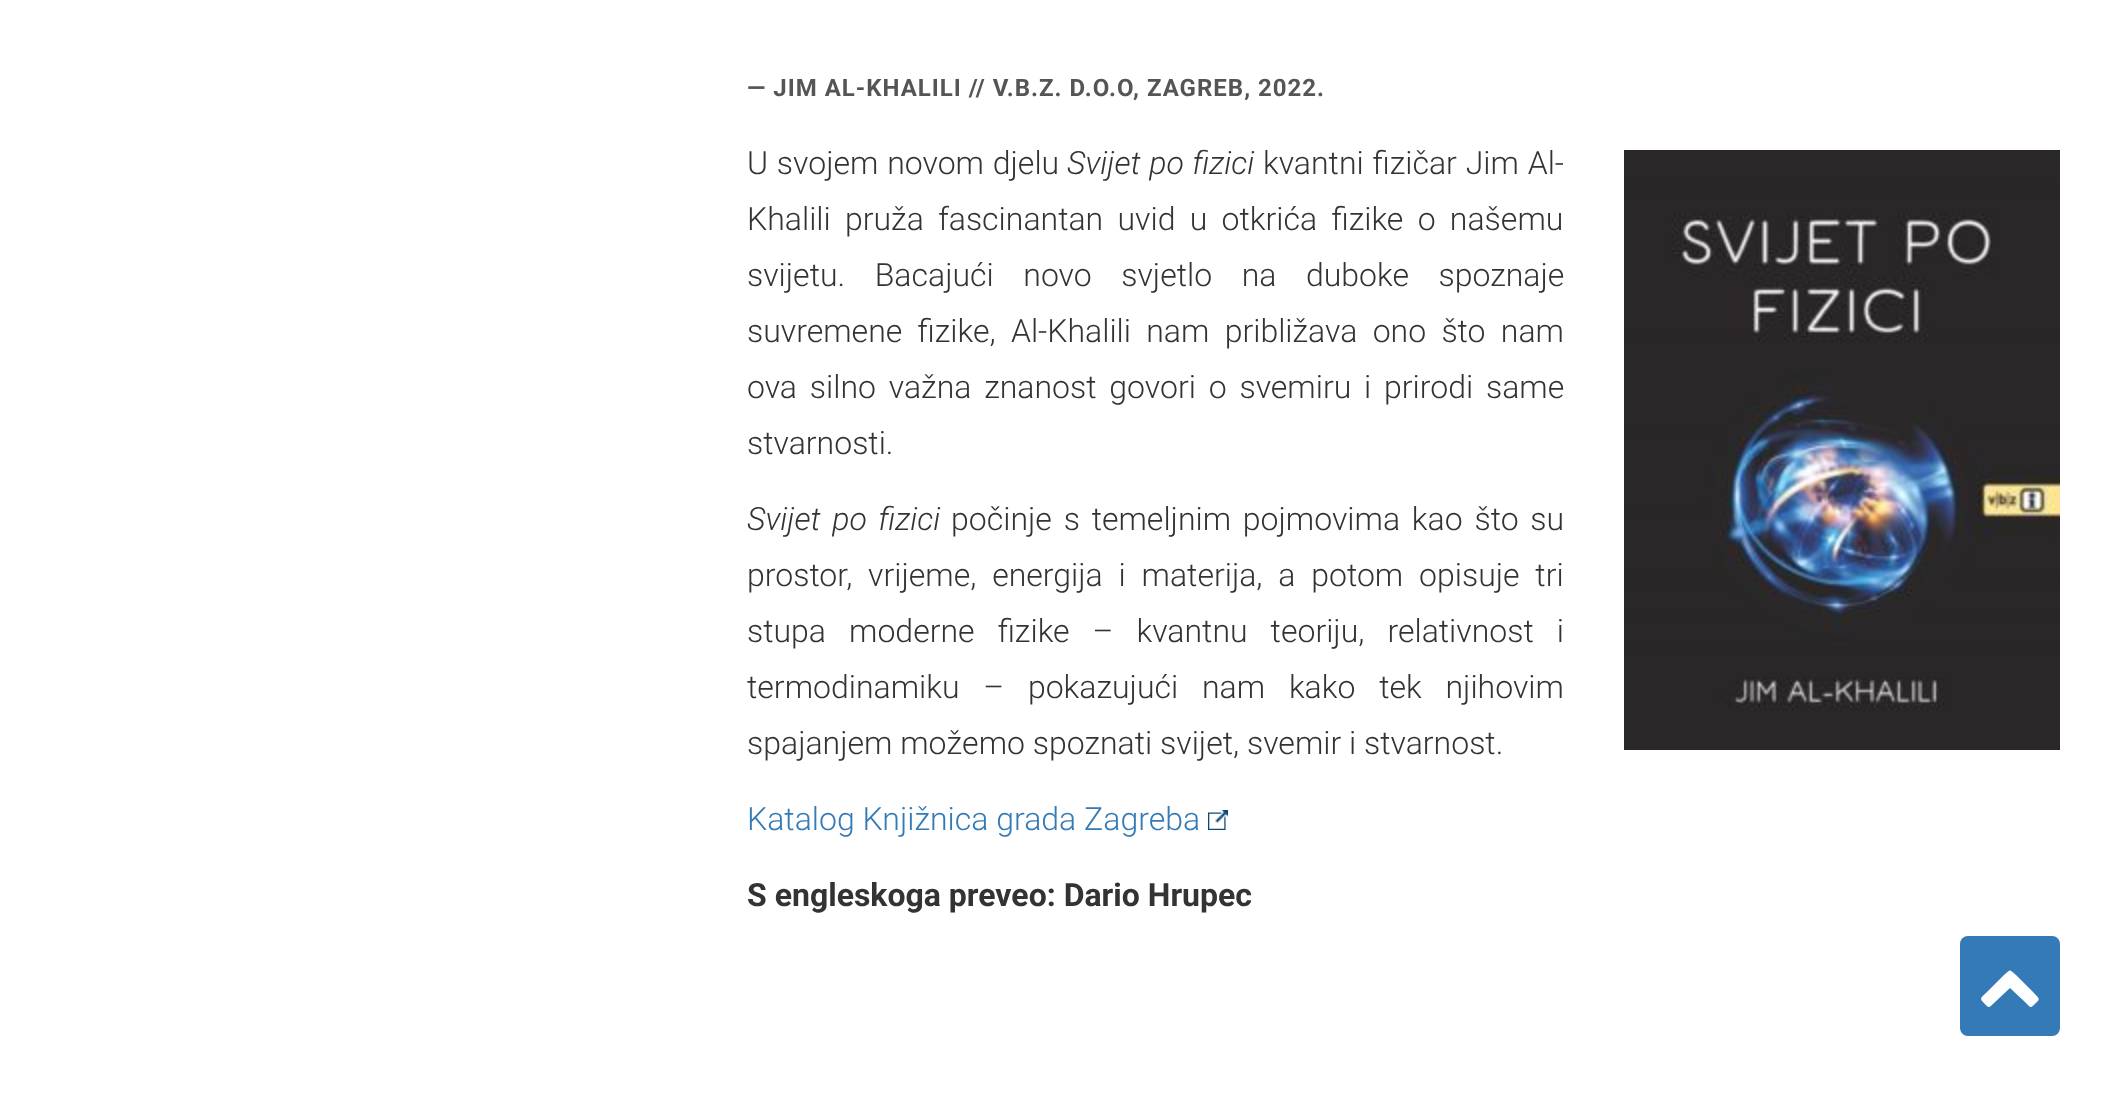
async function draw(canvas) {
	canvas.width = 2120;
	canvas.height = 1096;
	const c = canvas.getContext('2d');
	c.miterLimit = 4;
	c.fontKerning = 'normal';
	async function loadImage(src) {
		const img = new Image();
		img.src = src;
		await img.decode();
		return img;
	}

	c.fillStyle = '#fff';
	c.fillRect(0, 0, 2120, 1096);
	c.letterSpacing = '1px';
	c.font = 'bold 24px Roboto';
	c.fillStyle = '#555';
	c.fillText('— JIM AL-KHALILI // V.B.Z. D.O.O, ZAGREB, 2022.', 747, 96);
	c.letterSpacing = '0px';
	c.wordSpacing = '1px';
	c.font = '300 32px Roboto';
	c.fillStyle = '#333';
	c.fillText('U svojem novom djelu', 747, 174);
	c.font = 'italic 300 32px Roboto';
	c.fillText('Svijet po fizici', 1067, 174);
	c.font = '300 32px Roboto';
	c.fillText('kvantni fizičar Jim Al-', 1263, 174);
	c.wordSpacing = '6.5px';
	c.fillText('Khalili pruža fascinantan uvid u otkrića fizike o našemu', 747, 230);
	c.wordSpacing = '21.75px';
	c.fillText('svijetu. Bacajući novo svjetlo na duboke spoznaje', 747, 286);
	c.wordSpacing = '7.5px';
	c.fillText('suvremene fizike, Al-Khalili nam približava ono što nam', 747, 342);
	c.wordSpacing = '5px';
	c.fillText('ova silno važna znanost govori o svemiru i prirodi same', 747, 398);
	c.wordSpacing = '0px';
	c.fillText('stvarnosti.', 747, 454);
	c.drawImage(await loadImage('img1.png'), 1624, 150, 436, 600);
	c.wordSpacing = '4px';
	c.font = 'italic 300 32px Roboto';
	c.fillText('Svijet po fizici', 747, 530);
	c.font = '300 32px Roboto';
	c.fillText('počinje s temeljnim pojmovima kao što su', 951, 530);
	c.wordSpacing = '8px';
	c.fillText('prostor, vrijeme, energija i materija, a potom opisuje tri', 747, 586);
	c.wordSpacing = '15.25px';
	c.fillText('stupa moderne fizike – kvantnu teoriju, relativnost i', 747, 642);
	c.wordSpacing = '16px';
	c.fillText('termodinamiku – pokazujući nam kako tek njihovim', 747, 698);
	c.wordSpacing = '0px';
	c.fillText('spajanjem možemo spoznati svijet, svemir i stvarnost.', 747, 754);
	c.fillStyle = '#337ab7';
	c.fillText('Katalog Knjižnica grada Zagreba', 747, 830);
	c.drawImage(await loadImage('img2.png'), 1208, 810, 20, 20);
	c.font = 'bold 32px Roboto';
	c.fillStyle = '#333';
	c.fillText('S engleskoga preveo: Dario Hrupec', 747, 906);
	c.fillStyle = '#337ab7';
	c.beginPath();
	c.roundRect(1960, 936, 100, 100, 8);
	c.fill();
	c.fillStyle = '#fff';
	c.beginPath();
	c.moveTo(2038, 1001);
	c.bezierCurveTo(2031, 1007, 2032, 1010, 2026, 1003);
	c.lineTo(2010, 988);
	c.lineTo(1994, 1003);
	c.bezierCurveTo(1988, 1009, 1989, 1008, 1983, 1002);
	c.bezierCurveTo(1979, 998, 1982, 997, 1986, 993);
	c.lineTo(2004, 975);
	c.bezierCurveTo(2011, 969, 2009, 969, 2016, 975);
	c.lineTo(2034, 993);
	c.bezierCurveTo(2034, 994, 2041, 998, 2038, 1001);
	c.closePath();
	c.fill();
}

draw(document.querySelector('canvas'));
